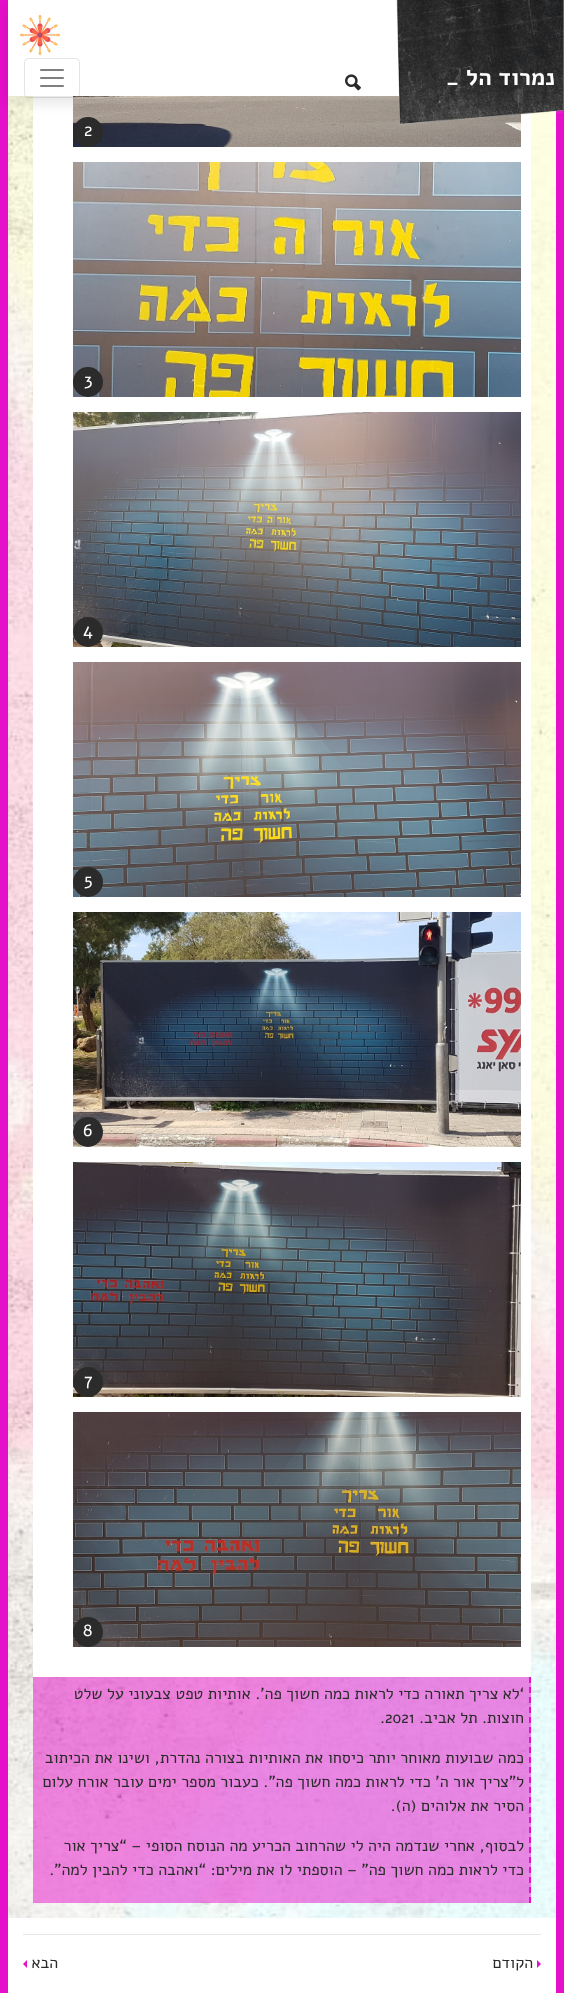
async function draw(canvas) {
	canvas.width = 564;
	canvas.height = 1993;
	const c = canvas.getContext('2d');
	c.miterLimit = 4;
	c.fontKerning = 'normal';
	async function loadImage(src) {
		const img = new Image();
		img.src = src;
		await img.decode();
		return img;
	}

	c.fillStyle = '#fff';
	c.fillRect(0, 0, 564, 1993);
	c.strokeStyle = '#e510c9';
	c.lineWidth = 8;
	c.strokeRect(4, -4, 556, 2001);
	c.drawImage(await loadImage('img5.png'), 8, 96, 548, 1822);
	c.fillRect(33, 96, 498, 1581);
	c.drawImage(await loadImage('img6.png'), 73, 96, 448, 51);
	c.fillStyle = '#2b2b2b';
	c.beginPath();
	c.arc(88, 132, 15, 0, 2 * Math.PI);
	c.fill();
	c.fillStyle = '#0000001a';
	c.filter = 'blur(6.5px)';
	c.beginPath();
	c.rect(8, 7, 548, 96);
	c.fill();
	c.filter = 'none';
	c.fillStyle = '#fff';
	c.fillRect(8, 0, 392, 96);
	c.drawImage(await loadImage('img1.png'), 396, 0, 167, 126);
	c.direction = 'rtl';
	c.font = 'bold 23px Alef';
	c.fillText('נמרוד הל', 555, 85);
	c.direction = 'ltr';
	c.fillText('_', 446, 85);
	c.drawImage(await loadImage('img2.png'), 345, 74, 16, 17);
	c.beginPath();
	c.roundRect(24.5, 58.5, 55, 39, 3.5);
	c.strokeStyle = '#0000001a';
	c.lineWidth = 1;
	c.stroke();
	c.drawImage(await loadImage('img3.png'), 40, 69, 24, 18);
	c.drawImage(await loadImage('img4.png'), 20, 15, 40, 40);
	c.font = '18px Alef';
	c.fillText('2', 84, 136);
	c.drawImage(await loadImage('img7.png'), 73, 162, 448, 235);
	c.fillStyle = '#2b2b2b';
	c.beginPath();
	c.arc(88, 382, 15, 0, 2 * Math.PI);
	c.fill();
	c.fillStyle = '#fff';
	c.fillText('3', 84, 386);
	c.drawImage(await loadImage('img8.png'), 73, 412, 448, 235);
	c.fillStyle = '#2b2b2b';
	c.beginPath();
	c.arc(88, 632, 15, 0, 2 * Math.PI);
	c.fill();
	c.fillStyle = '#fff';
	c.fillText('4', 83, 636);
	c.drawImage(await loadImage('img9.png'), 73, 662, 448, 235);
	c.fillStyle = '#2b2b2b';
	c.beginPath();
	c.arc(88, 882, 15, 0, 2 * Math.PI);
	c.fill();
	c.fillStyle = '#fff';
	c.fillText('5', 84, 886);
	c.drawImage(await loadImage('img10.png'), 73, 912, 448, 235);
	c.fillStyle = '#2b2b2b';
	c.beginPath();
	c.arc(88, 1132, 15, 0, 2 * Math.PI);
	c.fill();
	c.fillStyle = '#fff';
	c.fillText('6', 83, 1136);
	c.drawImage(await loadImage('img11.png'), 73, 1162, 448, 235);
	c.fillStyle = '#2b2b2b';
	c.beginPath();
	c.arc(88, 1382, 15, 0, 2 * Math.PI);
	c.fill();
	c.fillStyle = '#fff';
	c.fillText('7', 84, 1386);
	c.drawImage(await loadImage('img12.png'), 73, 1412, 448, 235);
	c.fillStyle = '#2b2b2b';
	c.beginPath();
	c.arc(88, 1632, 15, 0, 2 * Math.PI);
	c.fill();
	c.fillStyle = '#fff';
	c.fillText('8', 83, 1636);
	c.fillStyle = '#e510c980';
	c.fillRect(33, 1677, 498, 226);
	c.beginPath();
	c.moveTo(530, 1677);
	c.lineTo(530, 1903);
	c.strokeStyle = '#e510c9';
	c.lineWidth = 2;
	c.setLineDash([6, 4]);
	c.stroke();
	c.direction = 'rtl';
	c.font = '16px Alef';
	c.fillStyle = '#2b2b2b';
	c.fillText('‘לא צריך תאורה כדי לראות כמה חשוך פה’. אותיות טפט צבעוני על שלט', 524, 1699);
	c.fillText('חוצות. תל אביב.', 524, 1723);
	c.direction = 'ltr';
	c.fillText('.2021', 380, 1723);
	c.direction = 'rtl';
	for (const [text, x, y] of [
		['כמה שבועות מאוחר יותר כיסחו את האותיות בצורה נהדרת, ושינו את הכיתוב', 524, 1763],
		['ל”צריך אור ה’ כדי לראות כמה חשוך פה”. כעבור מספר ימים עובר אורח עלום', 524, 1787],
		['הסיר את אלוהים (ה).', 524, 1811],
		['לבסוף, אחרי שנדמה היה לי שהרחוב הכריע מה הנוסח הסופי – “צריך אור', 524, 1851],
		['כדי לראות כמה חשוך פה” – הוספתי לו את מילים: “ואהבה כדי להבין למה”.', 524, 1875],
	]) {
		c.fillText(text, x, y);
	}
	c.fillStyle = '#e6e6e6';
	c.fillRect(23, 1934, 518, 1);
	c.fillStyle = '#e510c9';
	c.beginPath();
	c.moveTo(537, 1968);
	c.lineTo(537, 1960);
	c.lineTo(541, 1964);
	c.closePath();
	c.fill();
	c.fillStyle = '#2b2b2b';
	c.fillText('הקודם', 533, 1968);
	c.fillText('הבא', 58, 1968);
	c.fillStyle = '#e510c9';
	c.beginPath();
	c.moveTo(27, 1960);
	c.lineTo(27, 1968);
	c.lineTo(23, 1964);
	c.closePath();
	c.fill();
}

draw(document.querySelector('canvas'));
